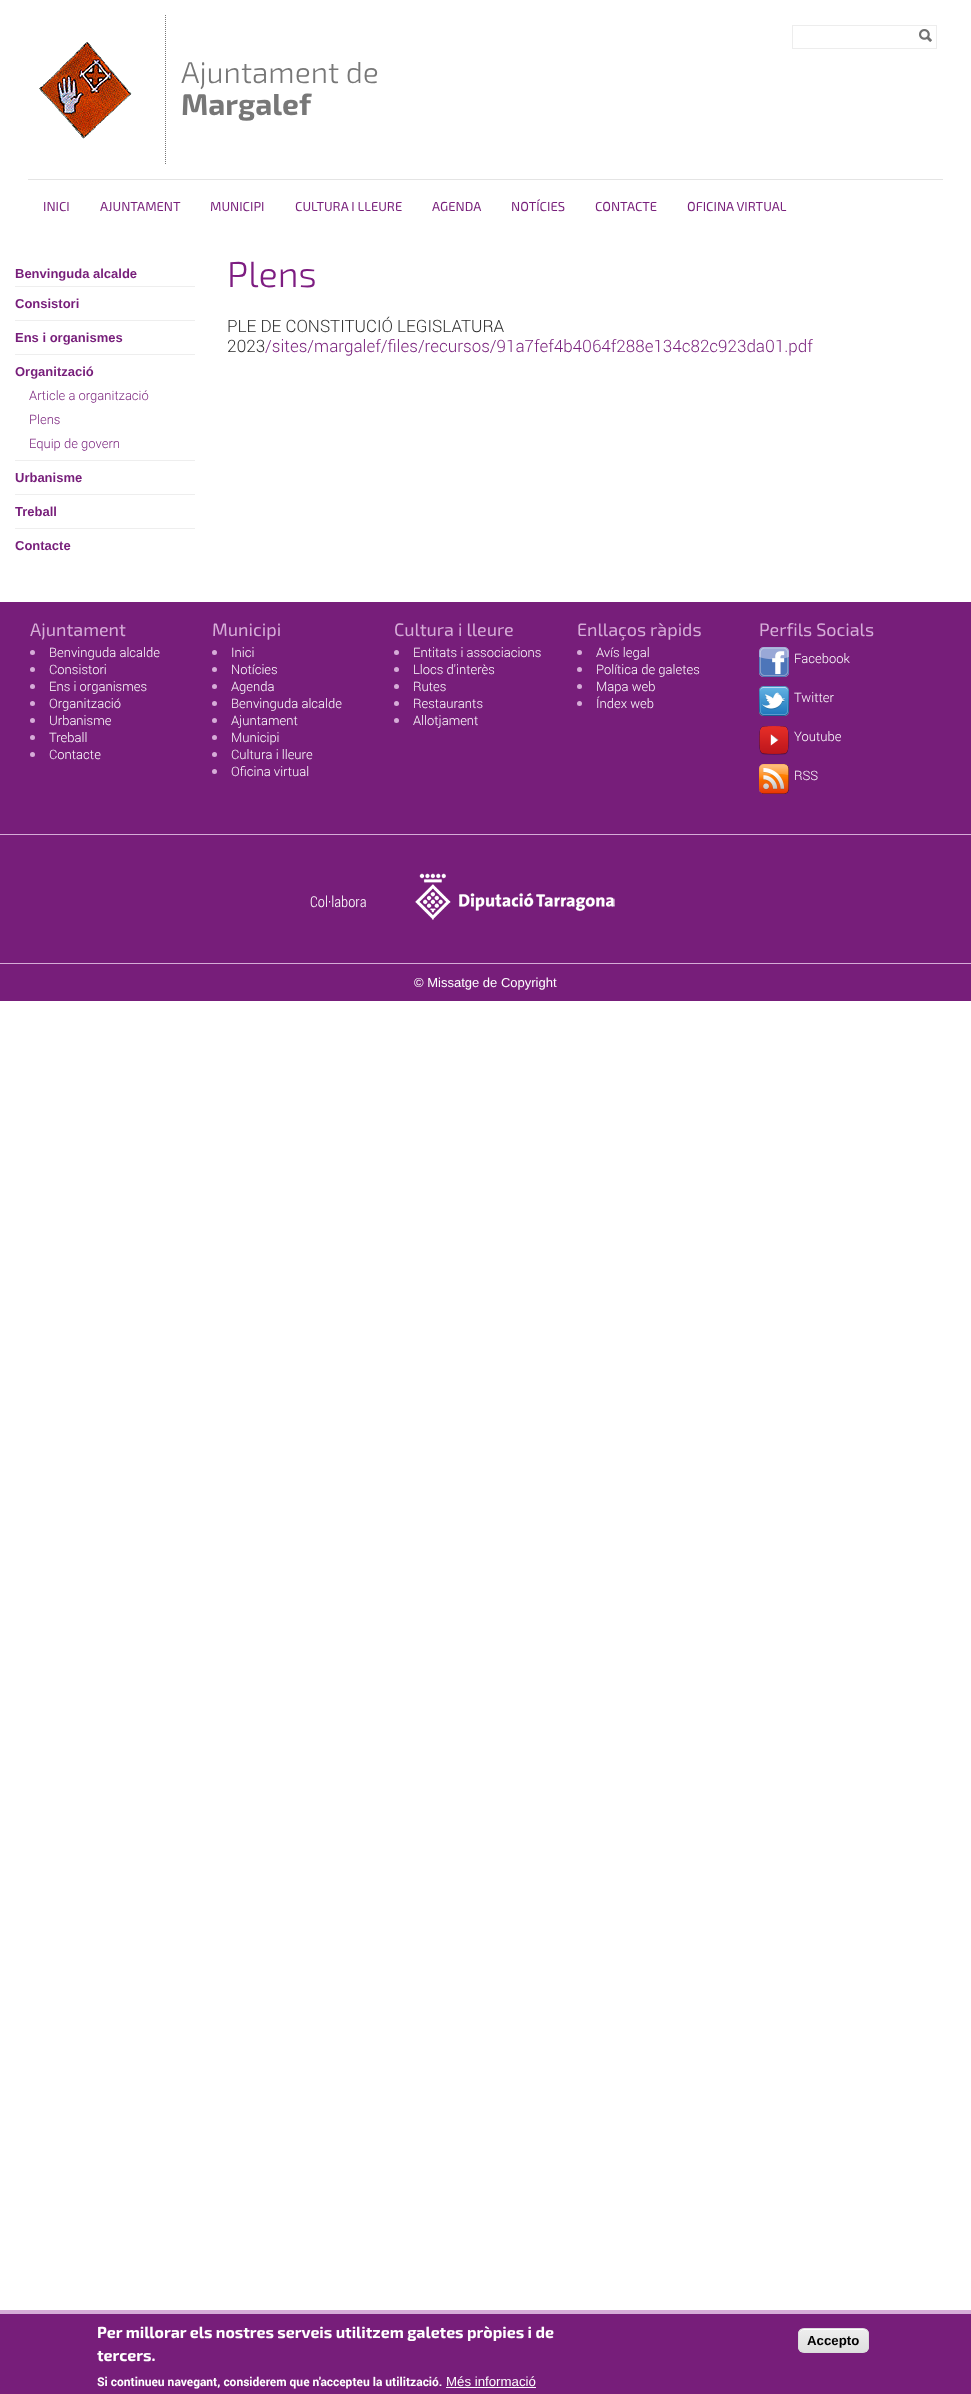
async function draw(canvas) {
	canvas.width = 971;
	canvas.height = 2394;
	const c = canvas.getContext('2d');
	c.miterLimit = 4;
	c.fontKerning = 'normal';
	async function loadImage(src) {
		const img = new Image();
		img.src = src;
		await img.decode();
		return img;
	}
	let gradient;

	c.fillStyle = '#fff';
	c.fillRect(0, 0, 971, 2394);
	c.strokeStyle = '#ededed';
	c.strokeRect(792.5, 25.5, 144, 23);
	c.drawImage(await loadImage('img1.png'), 919, 29, 13, 13);
	c.drawImage(await loadImage('img2.png'), 39, 42, 93, 97);
	c.beginPath();
	c.moveTo(165.5, 15);
	c.lineTo(165.5, 164);
	c.strokeStyle = '#777';
	c.setLineDash([1, 1]);
	c.stroke();
	c.font = '300 30px "Exo 2"';
	c.fillStyle = '#777';
	c.fillText('Ajuntament de', 181, 83);
	c.font = 'bold 30px "Exo 2"';
	c.fillText('Margalef', 181, 115);
	c.fillStyle = '#e4e4e4';
	c.fillRect(28, 179, 915, 1);
	c.font = '13px "Exo 2"';
	c.fillStyle = '#771e7a';
	for (const [text, x, y] of [
		['INICI', 43, 211],
		['AJUNTAMENT', 100, 211],
		['MUNICIPI', 210, 211],
		['CULTURA I LLEURE', 295, 211],
		['AGENDA', 432, 211],
		['NOTÍCIES', 511, 211],
		['CONTACTE', 595, 211],
		['OFICINA VIRTUAL', 687, 211],
	]) {
		c.fillText(text, x, y);
	}
	c.font = 'bold 13px Liberation Sans';
	c.fillText('Benvinguda alcalde', 15, 278);
	c.fillStyle = '#eee';
	c.fillRect(15, 286, 180, 1);
	c.fillStyle = '#771e7a';
	c.fillText('Consistori', 15, 308);
	c.fillStyle = '#eee';
	c.fillRect(15, 320, 180, 1);
	c.fillStyle = '#771e7a';
	c.fillText('Ens i organismes', 15, 342);
	c.fillStyle = '#eee';
	c.fillRect(15, 354, 180, 1);
	c.fillStyle = '#771e7a';
	c.fillText('Organització', 15, 376);
	c.font = '300 13px "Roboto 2"';
	for (const [text, x, y] of [
		['Article a organització', 29, 400],
		['Plens', 29, 424],
		['Equip de govern', 29, 448],
	]) {
		c.fillText(text, x, y);
	}
	c.fillStyle = '#eee';
	c.fillRect(15, 460, 180, 1);
	c.font = 'bold 13px Liberation Sans';
	c.fillStyle = '#771e7a';
	c.fillText('Urbanisme', 15, 482);
	c.fillStyle = '#eee';
	c.fillRect(15, 494, 180, 1);
	c.fillStyle = '#771e7a';
	c.fillText('Treball', 15, 516);
	c.fillStyle = '#eee';
	c.fillRect(15, 528, 180, 1);
	c.fillStyle = '#771e7a';
	c.fillText('Contacte', 15, 550);
	c.font = '300 36px "Exo 2"';
	c.fillStyle = '#7d1d81';
	c.fillText('Plens', 227, 287);
	c.font = '300 17px Roboto';
	c.fillStyle = '#2d2d2d';
	c.fillText('PLE DE CONSTITUCIÓ LEGISLATURA', 227, 332);
	c.fillText('2023', 227, 352);
	c.fillStyle = '#771e7a';
	c.fillText('/sites/margalef/files/recursos/91a7fef4b4064f288e134c82c923da01.pdf', 265, 352);
	c.fillRect(0, 602, 971, 399);
	c.font = '18px "Exo 2"';
	c.fillStyle = '#d6add8';
	c.fillText('Ajuntament', 30, 636);
	c.beginPath();
	c.arc(32.5, 652.5, 2.5, 0, 2 * Math.PI);
	c.fill();
	c.font = '300 13px Roboto';
	c.fillStyle = '#fff';
	c.fillText('Benvinguda alcalde', 49, 657);
	c.fillStyle = '#d6add8';
	c.beginPath();
	c.arc(32.5, 669.5, 2.5, 0, 2 * Math.PI);
	c.fill();
	c.fillStyle = '#fff';
	c.fillText('Consistori', 49, 674);
	c.fillStyle = '#d6add8';
	c.beginPath();
	c.arc(32.5, 686.5, 2.5, 0, 2 * Math.PI);
	c.fill();
	c.fillStyle = '#fff';
	c.fillText('Ens i organismes', 49, 691);
	c.fillStyle = '#d6add8';
	c.beginPath();
	c.arc(32.5, 703.5, 2.5, 0, 2 * Math.PI);
	c.fill();
	c.fillStyle = '#fff';
	c.fillText('Organització', 49, 708);
	c.fillStyle = '#d6add8';
	c.beginPath();
	c.arc(32.5, 720.5, 2.5, 0, 2 * Math.PI);
	c.fill();
	c.fillStyle = '#fff';
	c.fillText('Urbanisme', 49, 725);
	c.fillStyle = '#d6add8';
	c.beginPath();
	c.arc(32.5, 737.5, 2.5, 0, 2 * Math.PI);
	c.fill();
	c.fillStyle = '#fff';
	c.fillText('Treball', 49, 742);
	c.fillStyle = '#d6add8';
	c.beginPath();
	c.arc(32.5, 754.5, 2.5, 0, 2 * Math.PI);
	c.fill();
	c.fillStyle = '#fff';
	c.fillText('Contacte', 49, 759);
	c.font = '18px "Exo 2"';
	c.fillStyle = '#d6add8';
	c.fillText('Municipi', 212, 636);
	c.beginPath();
	c.arc(214.5, 652.5, 2.5, 0, 2 * Math.PI);
	c.fill();
	c.font = '300 13px Roboto';
	c.fillStyle = '#fff';
	c.fillText('Inici', 231, 657);
	c.fillStyle = '#d6add8';
	c.beginPath();
	c.arc(214.5, 669.5, 2.5, 0, 2 * Math.PI);
	c.fill();
	c.fillStyle = '#fff';
	c.fillText('Notícies', 231, 674);
	c.fillStyle = '#d6add8';
	c.beginPath();
	c.arc(214.5, 686.5, 2.5, 0, 2 * Math.PI);
	c.fill();
	c.fillStyle = '#fff';
	c.fillText('Agenda', 231, 691);
	c.fillStyle = '#d6add8';
	c.beginPath();
	c.arc(214.5, 703.5, 2.5, 0, 2 * Math.PI);
	c.fill();
	c.fillStyle = '#fff';
	c.fillText('Benvinguda alcalde', 231, 708);
	c.fillStyle = '#d6add8';
	c.beginPath();
	c.arc(214.5, 720.5, 2.5, 0, 2 * Math.PI);
	c.fill();
	c.fillStyle = '#fff';
	c.fillText('Ajuntament', 231, 725);
	c.fillStyle = '#d6add8';
	c.beginPath();
	c.arc(214.5, 737.5, 2.5, 0, 2 * Math.PI);
	c.fill();
	c.fillStyle = '#fff';
	c.fillText('Municipi', 231, 742);
	c.fillStyle = '#d6add8';
	c.beginPath();
	c.arc(214.5, 754.5, 2.5, 0, 2 * Math.PI);
	c.fill();
	c.fillStyle = '#fff';
	c.fillText('Cultura i lleure', 231, 759);
	c.fillStyle = '#d6add8';
	c.beginPath();
	c.arc(214.5, 771.5, 2.5, 0, 2 * Math.PI);
	c.fill();
	c.fillStyle = '#fff';
	c.fillText('Oficina virtual', 231, 776);
	c.font = '18px "Exo 2"';
	c.fillStyle = '#d6add8';
	c.fillText('Cultura i lleure', 394, 636);
	c.beginPath();
	c.arc(396.5, 652.5, 2.5, 0, 2 * Math.PI);
	c.fill();
	c.font = '300 13px Roboto';
	c.fillStyle = '#fff';
	c.fillText('Entitats i associacions', 413, 657);
	c.fillStyle = '#d6add8';
	c.beginPath();
	c.arc(396.5, 669.5, 2.5, 0, 2 * Math.PI);
	c.fill();
	c.fillStyle = '#fff';
	c.fillText('Llocs d\'interès', 413, 674);
	c.fillStyle = '#d6add8';
	c.beginPath();
	c.arc(396.5, 686.5, 2.5, 0, 2 * Math.PI);
	c.fill();
	c.fillStyle = '#fff';
	c.fillText('Rutes', 413, 691);
	c.fillStyle = '#d6add8';
	c.beginPath();
	c.arc(396.5, 703.5, 2.5, 0, 2 * Math.PI);
	c.fill();
	c.fillStyle = '#fff';
	c.fillText('Restaurants', 413, 708);
	c.fillStyle = '#d6add8';
	c.beginPath();
	c.arc(396.5, 720.5, 2.5, 0, 2 * Math.PI);
	c.fill();
	c.fillStyle = '#fff';
	c.fillText('Allotjament', 413, 725);
	c.font = '18px "Exo 2"';
	c.fillStyle = '#d6add8';
	c.fillText('Enllaços ràpids', 577, 636);
	c.beginPath();
	c.arc(579.5, 652.5, 2.5, 0, 2 * Math.PI);
	c.fill();
	c.font = '300 13px Roboto';
	c.fillStyle = '#fff';
	c.fillText('Avís legal', 596, 657);
	c.fillStyle = '#d6add8';
	c.beginPath();
	c.arc(579.5, 669.5, 2.5, 0, 2 * Math.PI);
	c.fill();
	c.fillStyle = '#fff';
	c.fillText('Política de galetes', 596, 674);
	c.fillStyle = '#d6add8';
	c.beginPath();
	c.arc(579.5, 686.5, 2.5, 0, 2 * Math.PI);
	c.fill();
	c.fillStyle = '#fff';
	c.fillText('Mapa web', 596, 691);
	c.fillStyle = '#d6add8';
	c.beginPath();
	c.arc(579.5, 703.5, 2.5, 0, 2 * Math.PI);
	c.fill();
	c.fillStyle = '#fff';
	c.fillText('Índex web', 596, 708);
	c.font = '18px "Exo 2"';
	c.fillStyle = '#d6add8';
	c.fillText('Perfils Socials', 759, 636);
	c.drawImage(await loadImage('img3.png'), 759, 647, 30, 30);
	c.font = '300 13px Roboto';
	c.fillStyle = '#fff';
	c.fillText('Facebook', 794, 663);
	c.drawImage(await loadImage('img4.png'), 759, 686, 30, 30);
	c.fillText('Twitter', 794, 702);
	c.drawImage(await loadImage('img5.png'), 759, 726, 30, 29);
	c.fillText('Youtube', 794, 741);
	c.drawImage(await loadImage('img6.png'), 759, 764, 30, 30);
	c.fillText('RSS', 794, 780);
	c.fillStyle = '#d6add8';
	c.fillRect(0, 834, 971, 1);
	c.fillRect(0, 963, 971, 1);
	c.font = '300 15px Roboto Condensed';
	c.fillStyle = '#fff';
	c.fillText('Col·labora', 310, 907);
	c.drawImage(await loadImage('img7.png'), 415, 873, 200, 47);
	c.font = '13px Liberation Sans';
	c.fillText('© Missatge de Copyright', 414, 987);
	c.fillStyle = '#771e7a';
	c.fillRect(0, 2314, 971, 80);
	c.fillStyle = '#d6add8';
	c.fillRect(0, 2310, 971, 4);
	c.font = 'bold 16px "Exo 2"';
	c.fillStyle = '#fff';
	c.fillText('Per millorar els nostres serveis utilitzem galetes pròpies i de', 97, 2338);
	c.fillText('tercers.', 97, 2361);
	c.font = 'bold 12px Roboto';
	c.fillText('Si continueu navegant, considerem que n\'accepteu la utilització.', 97, 2386);
	c.font = '13.25px Liberation Sans';
	c.fillText('Més informació', 446, 2386);
	c.fillRect(446, 2387, 90, 1);
	c.save();
	c.beginPath();
	c.roundRect(798, 2328, 71, 25, 6);
	c.clip();
	gradient = c.createLinearGradient(834, 2329, 834, 2352);
	gradient.addColorStop(0.05, '#ededed');
	gradient.addColorStop(1, '#dfdfdf');
	c.fillStyle = gradient;
	c.fillRect(798, 2329, 71, 23);
	c.restore();
	c.beginPath();
	c.moveTo(804, 2330);
	c.lineTo(863, 2330);
	c.bezierCurveTo(866, 2330, 868, 2332, 868, 2335);
	c.bezierCurveTo(868, 2327, 859, 2329, 853, 2329);
	c.lineTo(814, 2329);
	c.bezierCurveTo(808, 2329, 799, 2327, 799, 2335);
	c.bezierCurveTo(799, 2332, 801, 2330, 804, 2330);
	c.closePath();
	c.fill();
	c.beginPath();
	c.roundRect(798.5, 2328.5, 70, 24, 5.5);
	c.strokeStyle = '#dcdcdc';
	c.setLineDash([]);
	c.stroke();
	c.font = 'bold 13.25px Liberation Sans';
	c.fillStyle = '#000';
	c.fillText('Accepto', 807, 2345);
}

draw(document.querySelector('canvas'));
